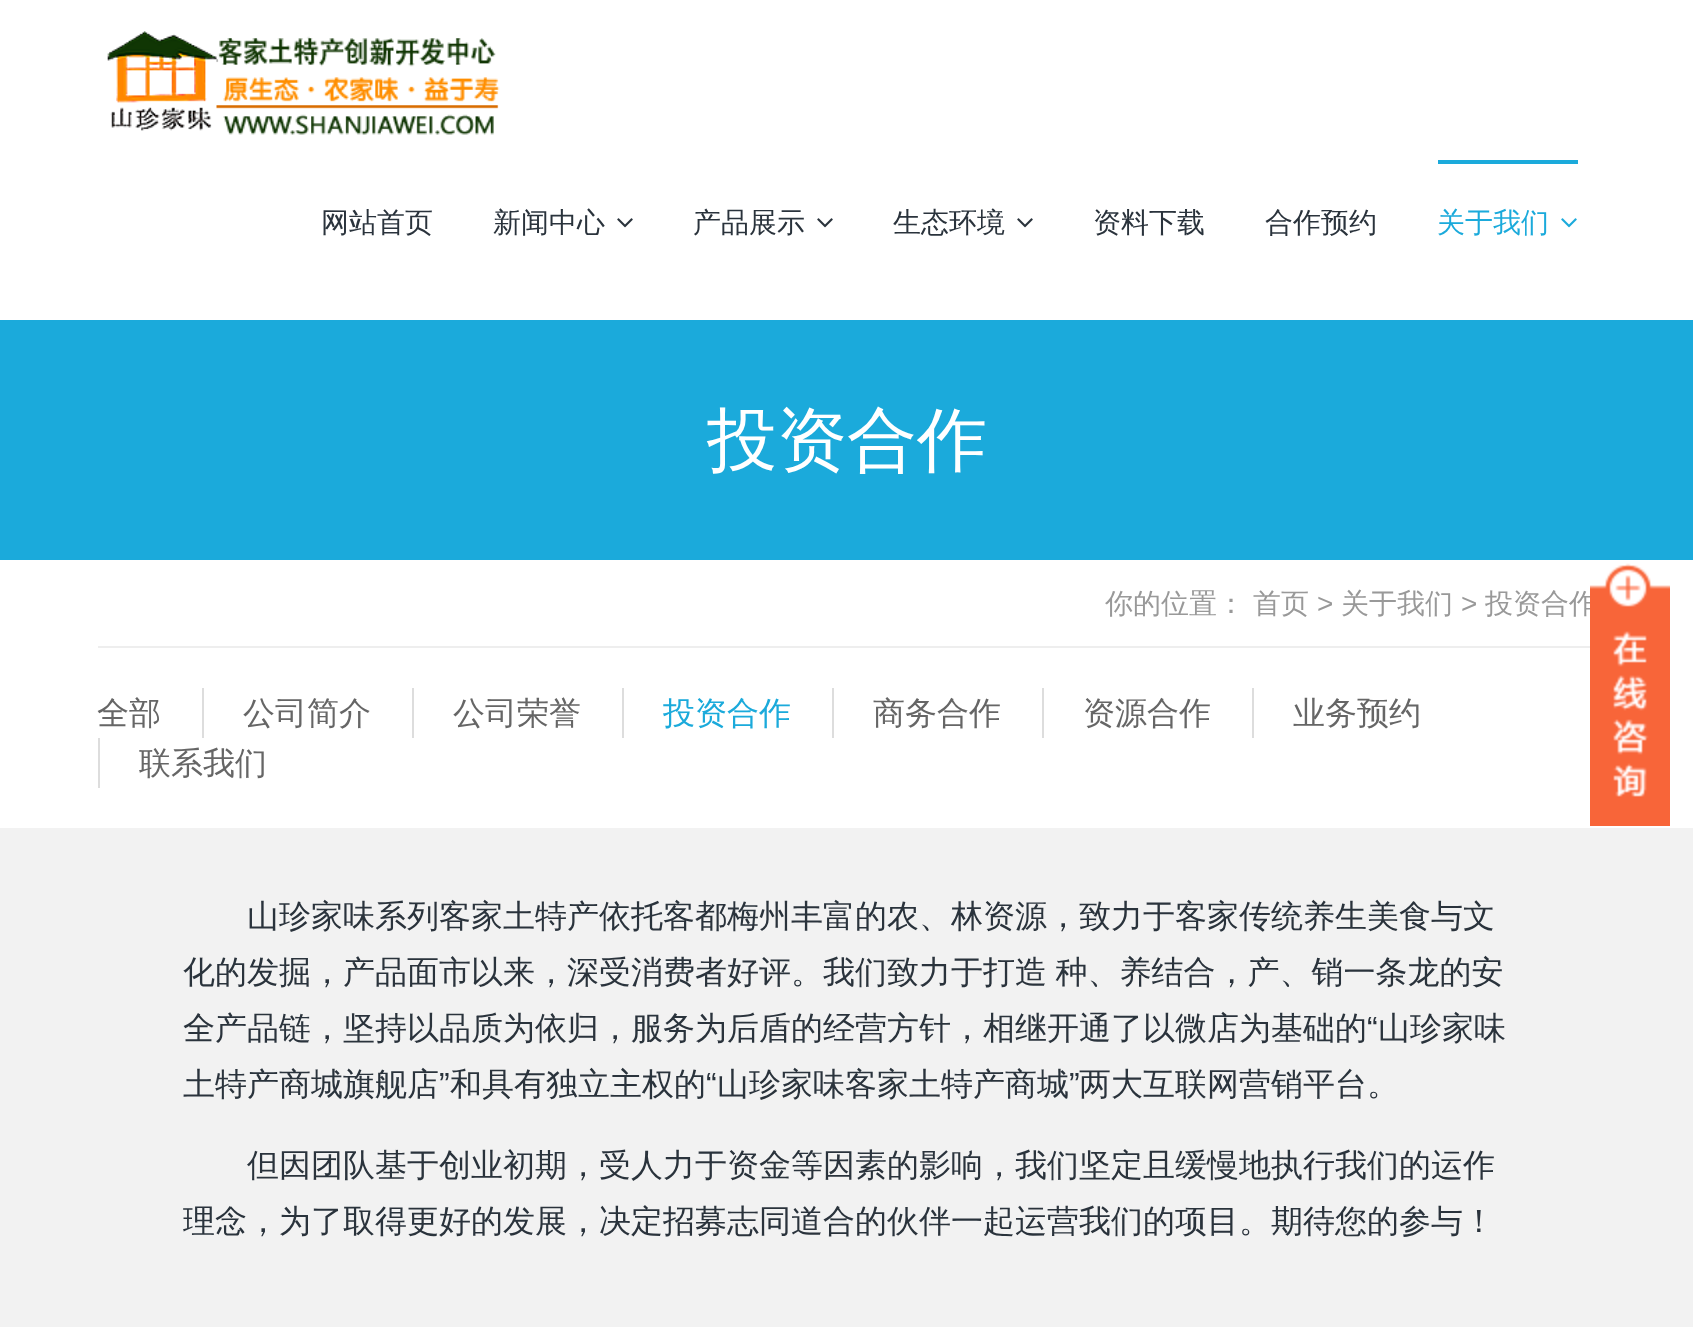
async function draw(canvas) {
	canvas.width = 1693;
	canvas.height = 1327;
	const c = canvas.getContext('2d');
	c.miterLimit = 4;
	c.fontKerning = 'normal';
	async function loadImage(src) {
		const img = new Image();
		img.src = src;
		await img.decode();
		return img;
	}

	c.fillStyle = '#fff';
	c.fillRect(0, 0, 1693, 1327);
	c.drawImage(await loadImage('img1.png'), 107, 31, 393, 104);
	c.font = '500 28px WenQuanYi Zen Hei';
	c.fillStyle = '#2a333c';
	c.fillText('网站首页', 321, 232);
	c.fillText('新闻中心', 493, 232);
	c.drawImage(await loadImage('img2.png'), 617, 218, 16, 10);
	c.fillText('产品展示', 693, 232);
	c.drawImage(await loadImage('img2.png'), 817, 218, 16, 10);
	c.fillText('生态环境', 893, 232);
	c.drawImage(await loadImage('img2.png'), 1017, 218, 16, 10);
	c.fillText('资料下载', 1093, 232);
	c.fillText('合作预约', 1265, 232);
	c.fillStyle = '#1baadb';
	c.fillRect(1438, 160, 140, 4);
	c.fillText('关于我们', 1437, 232);
	c.drawImage(await loadImage('img3.png'), 1561, 218, 16, 10);
	c.fillRect(0, 320, 1693, 240);
	c.font = '500 70px WenQuanYi Zen Hei';
	c.fillStyle = '#fff';
	c.fillText('投资合作', 707, 464);
	c.fillStyle = '#eee';
	c.fillRect(98, 646, 1500, 2);
	c.font = '500 28px WenQuanYi Zen Hei';
	c.fillStyle = '#999';
	c.fillText('你的位置：', 1105, 613);
	c.fillText('首页', 1253, 613);
	c.font = '28px Liberation Sans';
	c.fillText('>', 1317, 613);
	c.font = '500 28px WenQuanYi Zen Hei';
	c.fillText('关于我们', 1341, 613);
	c.font = '28px Liberation Sans';
	c.fillText('>', 1461, 613);
	c.font = '500 28px WenQuanYi Zen Hei';
	c.fillText('投资合作', 1485, 613);
	c.drawImage(await loadImage('img4.png'), 1590, 563, 80, 263);
	c.font = '500 32px WenQuanYi Zen Hei';
	c.fillStyle = '#666';
	c.fillText('全部', 97, 724);
	c.fillStyle = '#ddd';
	c.fillRect(202, 688, 2, 50);
	c.fillStyle = '#666';
	c.fillText('公司简介', 243, 724);
	c.fillStyle = '#ddd';
	c.fillRect(412, 688, 2, 50);
	c.fillStyle = '#666';
	c.fillText('公司荣誉', 453, 724);
	c.fillStyle = '#ddd';
	c.fillRect(622, 688, 2, 50);
	c.fillStyle = '#1baadb';
	c.fillText('投资合作', 663, 724);
	c.fillStyle = '#ddd';
	c.fillRect(832, 688, 2, 50);
	c.fillStyle = '#666';
	c.fillText('商务合作', 873, 724);
	c.fillStyle = '#ddd';
	c.fillRect(1042, 688, 2, 50);
	c.fillStyle = '#666';
	c.fillText('资源合作', 1083, 724);
	c.fillStyle = '#ddd';
	c.fillRect(1252, 688, 2, 50);
	c.fillStyle = '#666';
	c.fillText('业务预约', 1293, 724);
	c.fillStyle = '#ddd';
	c.fillRect(98, 738, 2, 50);
	c.fillStyle = '#666';
	c.fillText('联系我们', 139, 774);
	c.fillStyle = '#f2f2f2';
	c.fillRect(0, 828, 1693, 499);
	c.fillStyle = '#2a333c';
	c.fillText('山珍家味系列客家土特产依托客都梅州丰富的农、林资源，致力于客家传统养生美食与文', 247, 927);
	c.wordSpacing = '-1px';
	c.fillText('化的发掘，产品面市以来，深受消费者好评。我们致力于打造 种、养结合，产、销一条龙的安', 183, 983);
	c.wordSpacing = '0px';
	c.fillText('全产品链，坚持以品质为依归，服务为后盾的经营方针，相继开通了以微店为基础的', 183, 1039);
	c.font = '32px Liberation Sans';
	c.fillText('“', 1367, 1039);
	c.font = '500 32px WenQuanYi Zen Hei';
	c.fillText('山珍家味', 1378, 1039);
	c.fillText('土特产商城旗舰店', 183, 1095);
	c.font = '32px Liberation Sans';
	c.fillText('”', 439, 1095);
	c.font = '500 32px WenQuanYi Zen Hei';
	c.fillText('和具有独立主权的', 450, 1095);
	c.font = '32px Liberation Sans';
	c.fillText('“', 706, 1095);
	c.font = '500 32px WenQuanYi Zen Hei';
	c.fillText('山珍家味客家土特产商城', 717, 1095);
	c.font = '32px Liberation Sans';
	c.fillText('”', 1069, 1095);
	c.font = '500 32px WenQuanYi Zen Hei';
	for (const [text, x, y] of [
		['两大互联网营销平台。', 1079, 1095],
		['但因团队基于创业初期，受人力于资金等因素的影响，我们坚定且缓慢地执行我们的运作', 247, 1176],
		['理念，为了取得更好的发展，决定招募志同道合的伙伴一起运营我们的项目。期待您的参与！', 183, 1232],
	]) {
		c.fillText(text, x, y);
	}
}

draw(document.querySelector('canvas'));
